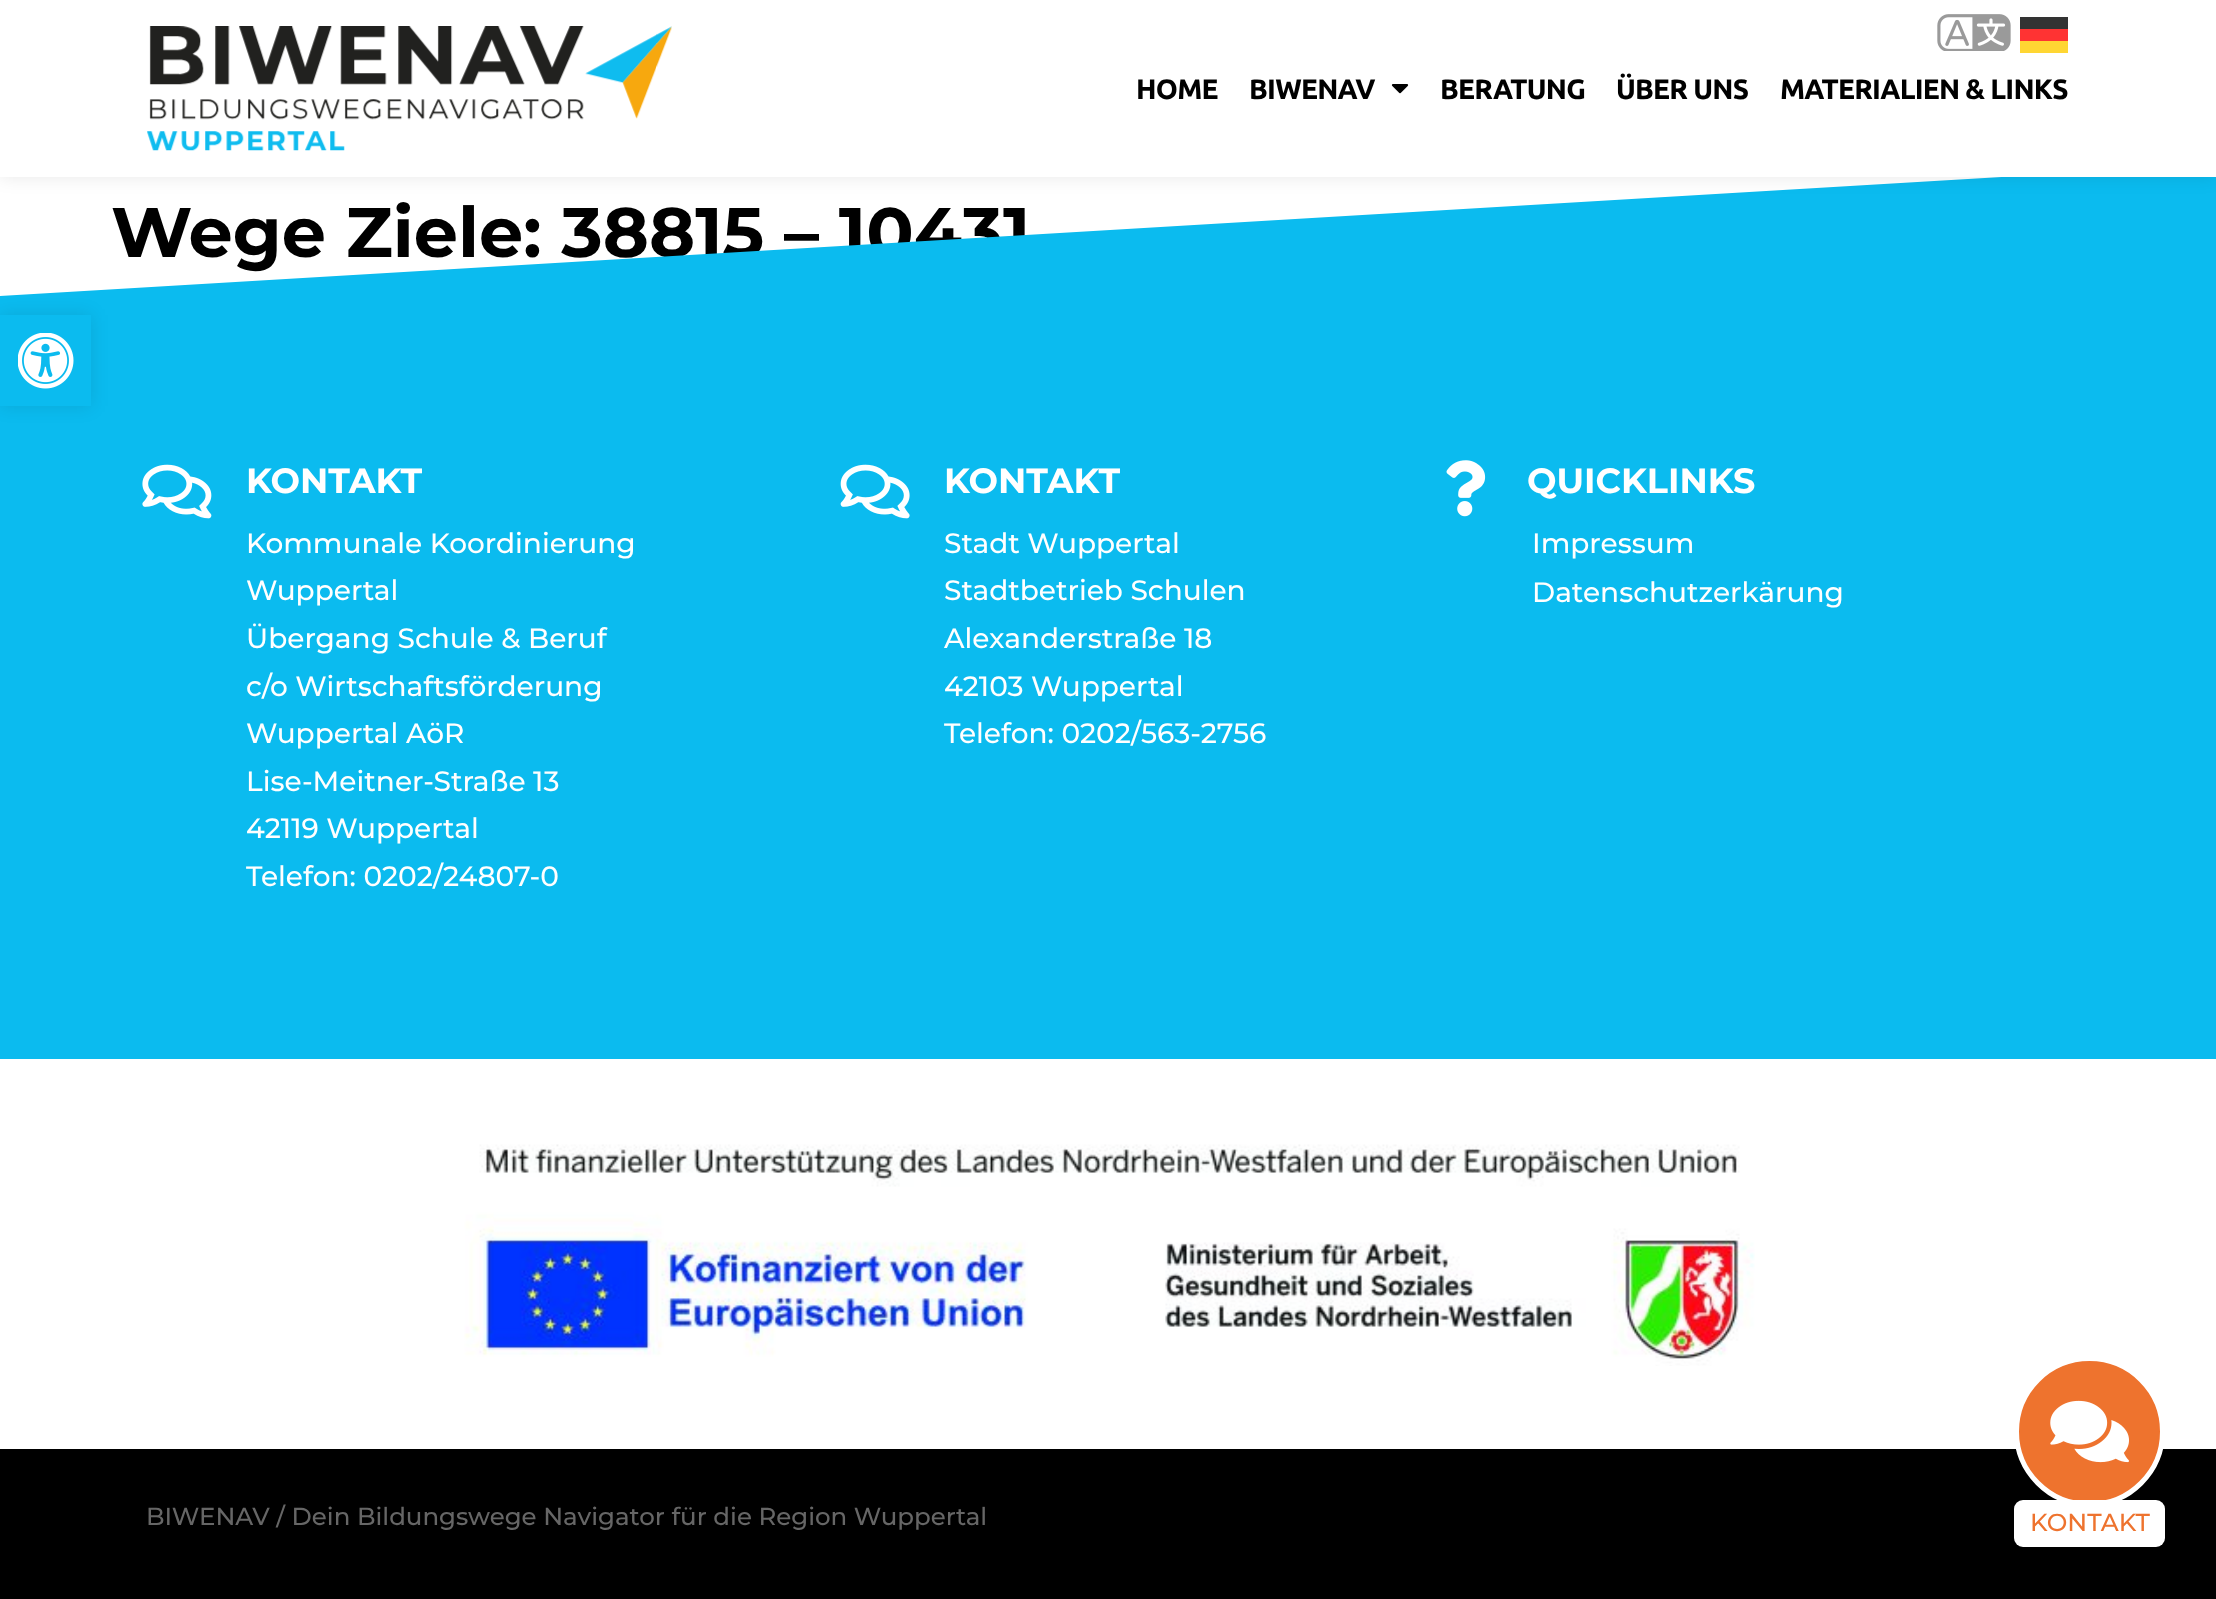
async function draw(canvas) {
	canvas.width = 2216;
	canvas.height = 1599;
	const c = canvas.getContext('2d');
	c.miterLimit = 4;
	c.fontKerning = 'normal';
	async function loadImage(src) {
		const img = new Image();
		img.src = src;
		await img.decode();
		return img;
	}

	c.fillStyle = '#fff';
	c.fillRect(0, 0, 2216, 1599);
	c.font = 'bold 70px Montserrat';
	c.fillStyle = '#000';
	c.fillText('Wege Ziele: 38815 – 10431', 111, 257);
	c.fillStyle = '#0bbbef';
	c.beginPath();
	c.moveTo(0, 296);
	c.lineTo(0, 304);
	c.lineTo(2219, 304);
	c.lineTo(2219, 164);
	c.closePath();
	c.fill();
	c.fillStyle = '#00000017';
	c.filter = 'blur(9px)';
	c.beginPath();
	c.rect(0, 0, 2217, 177);
	c.fill();
	c.filter = 'none';
	c.fillStyle = '#fff';
	c.fillRect(0, 0, 2216, 177);
	c.drawImage(await loadImage('img1.png'), 1937, 14, 74, 37);
	for (const [x, y, w, h, color] of [
		[2020, 17, 48, 12, '#333'],
		[2020, 29, 48, 12, '#f33'],
		[2020, 41, 48, 12, '#ffd633'],
	]) {
		c.fillStyle = color;
		c.fillRect(x, y, w, h);
	}
	c.drawImage(await loadImage('img2.png'), 147, 26, 525, 125);
	c.letterSpacing = '-0.75px';
	c.font = 'bold 28px Ubuntu';
	c.fillStyle = '#000';
	c.fillText('HOME', 1136, 99);
	c.fillText('BIWENAV', 1249, 99);
	c.drawImage(await loadImage('img3.png'), 1391, 84, 18, 10);
	for (const [text, x, y] of [
		['BERATUNG', 1440, 99],
		['ÜBER UNS', 1616, 99],
		['MATERIALIEN & LINKS', 1780, 99],
	]) {
		c.fillText(text, x, y);
	}
	c.fillStyle = '#0bbbef';
	c.fillRect(0, 304, 2216, 755);
	c.save();
	c.beginPath();
	c.moveTo(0, 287);
	c.lineTo(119, 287);
	c.lineTo(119, 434);
	c.lineTo(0, 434);
	c.closePath();
	c.moveTo(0, 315);
	c.lineTo(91, 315);
	c.lineTo(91, 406);
	c.lineTo(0, 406);
	c.closePath();
	c.clip('evenodd');
	c.fillStyle = '#0000001a';
	c.filter = 'blur(9px)';
	c.beginPath();
	c.rect(0, 315, 91, 91);
	c.fill();
	c.filter = 'none';
	c.restore();
	c.drawImage(await loadImage('img4.png'), 18, 333, 56, 56);
	c.drawImage(await loadImage('img5.png'), 142, 464, 70, 55);
	c.letterSpacing = '0px';
	c.font = 'bold 35px Montserrat';
	c.fillStyle = '#fff';
	c.fillText('KONTAKT', 246, 493);
	c.font = '500 28px Montserrat';
	for (const [text, x, y] of [
		['Kommunale Koordinierung', 246, 553],
		['Wuppertal', 246, 600],
		['Übergang Schule & Beruf', 246, 648],
		['c/o Wirtschaftsförderung', 246, 696],
		['Wuppertal AöR', 246, 743],
		['Lise-Meitner-Straße 13', 246, 791],
		['42119 Wuppertal', 246, 838],
		['Telefon: 0202/24807-0', 246, 886],
	]) {
		c.fillText(text, x, y);
	}
	c.drawImage(await loadImage('img6.png'), 840, 464, 70, 55);
	c.font = 'bold 35px Montserrat';
	c.fillText('KONTAKT', 944, 493);
	c.font = '500 28px Montserrat';
	for (const [text, x, y] of [
		['Stadt Wuppertal', 944, 553],
		['Stadtbetrieb Schulen', 944, 600],
		['Alexanderstraße 18', 944, 648],
		['42103 Wuppertal', 944, 696],
		['Telefon: 0202/563-2756', 944, 743],
	]) {
		c.fillText(text, x, y);
	}
	c.drawImage(await loadImage('img7.png'), 1446, 460, 40, 57);
	c.font = 'bold 35px Montserrat';
	c.fillText('QUICKLINKS', 1527, 493);
	c.font = '500 28px Montserrat';
	c.fillText('Impressum', 1532, 553);
	c.fillText('Datenschutzerkärung', 1532, 602);
	c.drawImage(await loadImage('img8.png'), 464, 1144, 1291, 222);
	c.fillStyle = '#000';
	c.fillRect(0, 1449, 2216, 150);
	c.font = '500 24.5px Montserrat';
	c.fillStyle = '#666';
	c.fillText('BIWENAV / Dein Bildungswege Navigator für die Region Wuppertal', 146, 1525);
	c.fillStyle = '#ee732e';
	c.beginPath();
	c.arc(2089.5, 1431.5, 73, 0, 2 * Math.PI);
	c.fill();
	c.strokeStyle = '#fff';
	c.lineWidth = 5;
	c.stroke();
	c.drawImage(await loadImage('img9.png'), 2050, 1400, 79, 63);
	c.fillStyle = '#fff';
	c.beginPath();
	c.roundRect(2014, 1500, 151, 47, 9);
	c.fill();
	c.fillStyle = '#ee732e';
	c.fillText('KONTAKT', 2030, 1531);
}

draw(document.querySelector('canvas'));
